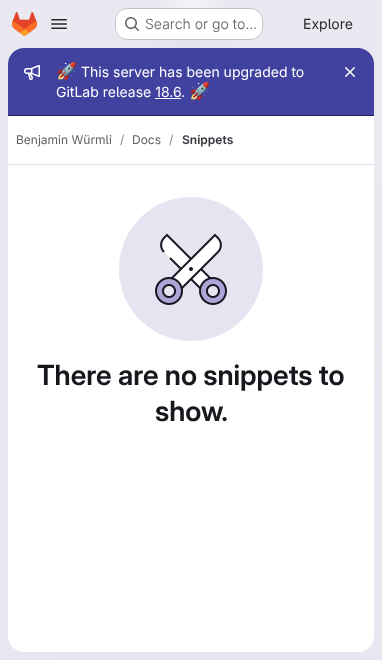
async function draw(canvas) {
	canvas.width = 382;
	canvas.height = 660;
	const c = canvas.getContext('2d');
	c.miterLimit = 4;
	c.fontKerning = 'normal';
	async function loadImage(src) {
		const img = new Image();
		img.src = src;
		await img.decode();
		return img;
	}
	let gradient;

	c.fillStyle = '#fff';
	c.fillRect(0, 0, 382, 660);
	gradient = c.createLinearGradient(253, 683, 129, -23);
	gradient.addColorStop(0, '#e8e6f0');
	gradient.addColorStop(0.7, '#eae9f2');
	c.fillStyle = gradient;
	c.fillRect(0, 0, 382, 660);
	gradient = c.createRadialGradient(191, 0, 0, 191, 0, 191);
	gradient.addColorStop(0, '#e4e2ed');
	gradient.addColorStop(0.37, '#e4e2ed00');
	c.fillStyle = gradient;
	c.beginPath();
	c.rect(140, 0, 102, 48);
	c.save();
	c.clip();
	c.scale(1, 660 / 191);
	c.fillRect(0, 0, 382, 191);
	c.restore();
	gradient = c.createRadialGradient(191, 0, 0, 191, 0, 191);
	gradient.addColorStop(0, '#e4e2ec');
	gradient.addColorStop(0.26, '#e4e2ec00');
	c.fillStyle = gradient;
	c.beginPath();
	c.rect(179, 15, 24, 30);
	c.save();
	c.clip();
	c.scale(1, 660 / 191);
	c.fillRect(0, 0, 382, 191);
	c.restore();
	gradient = c.createRadialGradient(191, 0, 0, 191, 0, 687);
	gradient.addColorStop(0, '#ffffff99');
	gradient.addColorStop(0.06, '#ffffff00');
	c.fillStyle = gradient;
	c.fillRect(151, 0, 80, 8);
	c.drawImage(await loadImage('img1.png'), 12, 12, 25, 24);
	c.drawImage(await loadImage('img2.png'), 51, 19, 16, 10);
	c.fillStyle = '#fff';
	c.beginPath();
	c.roundRect(115, 8, 148, 32, 12);
	c.fill();
	c.beginPath();
	c.roundRect(115.5, 8.5, 147, 31, 11.5);
	c.strokeStyle = '#0505063d';
	c.stroke();
	c.drawImage(await loadImage('img3.png'), 125, 17, 14, 14);
	c.font = '300 14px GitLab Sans';
	c.fillStyle = '#626168';
	c.fillText('Search or go to…', 145, 29);
	c.font = '14px GitLab Sans';
	c.fillStyle = '#28272d';
	c.fillText('Explore', 303, 29);
	c.fillStyle = '#fff';
	c.beginPath();
	c.roundRect(8, 48, 366, 604, 16);
	c.fill();
	c.fillStyle = '#41419f';
	c.beginPath();
	c.roundRect(8, 48, 366, 68, [16, 16, 0, 0]);
	c.fill();
	c.fillStyle = '#222261';
	c.fillRect(8, 115, 366, 1);
	c.drawImage(await loadImage('img4.png'), 24, 65, 16, 15);
	c.font = '17px Noto Color Emoji';
	c.fillStyle = '#fff';
	c.fillText('🚀', 56, 77);
	c.font = '14px GitLab Sans';
	for (const [text, x, y] of [
		['This server has been upgraded to', 81, 77],
		['GitLab release 18.6', 56, 97],
		['.', 181, 97],
	]) {
		c.fillText(text, x, y);
	}
	c.font = '17px Noto Color Emoji';
	c.fillText('🚀', 189, 97);
	c.fillRect(155, 98, 26, 1);
	c.drawImage(await loadImage('img5.png'), 345, 67, 10, 10);
	c.fillStyle = '#e1dfec';
	c.fillRect(8, 164, 366, 1);
	c.font = '12px GitLab Sans';
	c.fillStyle = '#626168';
	c.fillText('Benjamin Würmli', 16, 144);
	c.fillStyle = '#89888d';
	c.fillText('/', 120, 144);
	c.fillStyle = '#626168';
	c.fillText('Docs', 132, 144);
	c.fillStyle = '#89888d';
	c.fillText('/', 169, 144);
	c.font = '600 12px "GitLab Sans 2"';
	c.fillStyle = '#3a383f';
	c.fillText('Snippets', 182, 144);
	c.drawImage(await loadImage('img6.png'), 119, 197, 144, 144);
	c.font = '600 28px GitLab Sans';
	c.fillStyle = '#18171d';
	c.fillText('There are no snippets to', 37, 385);
	c.fillText('show.', 155, 421);
}

draw(document.querySelector('canvas'));
